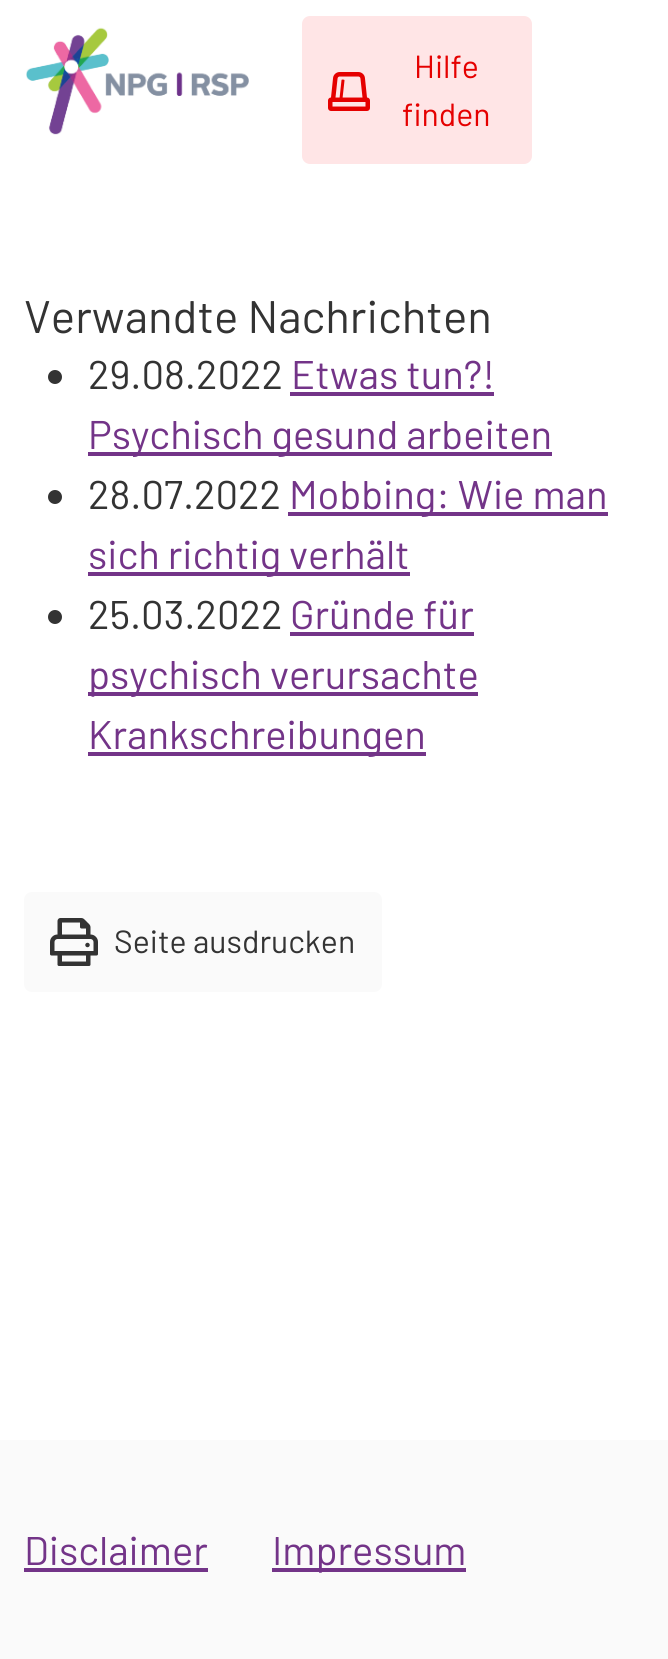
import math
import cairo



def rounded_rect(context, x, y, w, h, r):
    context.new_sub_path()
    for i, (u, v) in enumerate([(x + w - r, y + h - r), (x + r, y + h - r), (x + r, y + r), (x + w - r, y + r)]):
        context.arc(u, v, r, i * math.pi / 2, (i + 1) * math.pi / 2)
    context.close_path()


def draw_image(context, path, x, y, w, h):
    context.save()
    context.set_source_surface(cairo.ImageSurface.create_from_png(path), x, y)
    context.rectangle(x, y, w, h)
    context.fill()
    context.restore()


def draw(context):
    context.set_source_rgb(1, 1, 1)
    context.paint()
    draw_image(context, "images/1.png", 26, 27, 223, 108)
    context.set_source_rgb(1, 229 / 255, 230 / 255)
    rounded_rect(context, 302, 16, 230, 148, 8)
    context.fill()
    draw_image(context, "images/2.png", 328, 72, 42, 39)
    context.set_source_rgb(51 / 255, 51 / 255, 51 / 255)
    context.arc(55, 377, 7, 0, 2 * math.pi)
    context.fill()
    context.set_source_rgb(115 / 255, 52 / 255, 136 / 255)
    context.rectangle(290, 392, 204, 4)
    context.fill()
    context.rectangle(88, 452, 464, 4)
    context.fill()
    context.set_source_rgb(51 / 255, 51 / 255, 51 / 255)
    context.arc(55, 497, 7, 0, 2 * math.pi)
    context.fill()
    context.set_source_rgb(115 / 255, 52 / 255, 136 / 255)
    context.rectangle(288, 512, 320, 4)
    context.fill()
    context.rectangle(88, 572, 322, 4)
    context.fill()
    context.set_source_rgb(51 / 255, 51 / 255, 51 / 255)
    context.arc(55, 617, 7, 0, 2 * math.pi)
    context.fill()
    context.set_source_rgb(115 / 255, 52 / 255, 136 / 255)
    context.rectangle(290, 632, 184, 4)
    context.fill()
    context.rectangle(88, 692, 390, 4)
    context.fill()
    context.rectangle(88, 752, 338, 4)
    context.fill()
    context.set_source_rgb(250 / 255, 250 / 255, 250 / 255)
    rounded_rect(context, 24, 892, 358, 100, 8)
    context.fill()
    draw_image(context, "images/3.png", 50, 918, 48, 48)
    context.rectangle(0, 1440, 668, 219)
    context.fill()
    context.set_source_rgb(115 / 255, 52 / 255, 136 / 255)
    context.rectangle(24, 1568, 184, 4)
    context.fill()
    context.rectangle(272, 1568, 194, 4)
    context.fill()
    context.select_font_face("Barlow")
    context.set_font_size(32)
    context.set_source_rgb(229 / 255, 0, 0)
    context.move_to(414, 78)
    context.show_text("Hilfe")
    context.move_to(402, 126)
    context.show_text("finden")
    context.set_font_size(45.6)
    context.set_source_rgb(51 / 255, 51 / 255, 51 / 255)
    context.move_to(24, 333)
    context.show_text("Verwandte Nachrichten")
    context.set_font_size(40)
    context.move_to(88, 389)
    context.show_text("29.08.2022")
    context.set_source_rgb(115 / 255, 52 / 255, 136 / 255)
    context.move_to(291, 389)
    context.show_text("Etwas tun?!")
    context.move_to(88, 449)
    context.show_text("Psychisch gesund arbeiten")
    context.set_source_rgb(51 / 255, 51 / 255, 51 / 255)
    context.move_to(88, 509)
    context.show_text("28.07.2022")
    context.set_source_rgb(115 / 255, 52 / 255, 136 / 255)
    context.move_to(289, 509)
    context.show_text("Mobbing: Wie man")
    context.move_to(88, 569)
    context.show_text("sich richtig verhält")
    context.set_source_rgb(51 / 255, 51 / 255, 51 / 255)
    context.move_to(88, 629)
    context.show_text("25.03.2022")
    context.set_source_rgb(115 / 255, 52 / 255, 136 / 255)
    context.move_to(290, 629)
    context.show_text("Gründe für")
    context.move_to(88, 689)
    context.show_text("psychisch verursachte")
    context.move_to(88, 749)
    context.show_text("Krankschreibungen")
    context.set_font_size(32)
    context.set_source_rgb(51 / 255, 51 / 255, 51 / 255)
    context.move_to(114, 953)
    context.show_text("Seite ausdrucken")
    context.set_font_size(40)
    context.set_source_rgb(115 / 255, 52 / 255, 136 / 255)
    context.move_to(24, 1565)
    context.show_text("Disclaimer")
    context.move_to(272, 1565)
    context.show_text("Impressum")


surface = cairo.ImageSurface(cairo.Format.RGB24, 668, 1659)
context = cairo.Context(surface)
options = cairo.FontOptions()
options.set_hint_metrics(cairo.HintMetrics.OFF)
options.set_hint_style(cairo.HintStyle.NONE)
context.set_font_options(options)
context.set_miter_limit(4)
draw(context)
surface.write_to_png("out.png")
